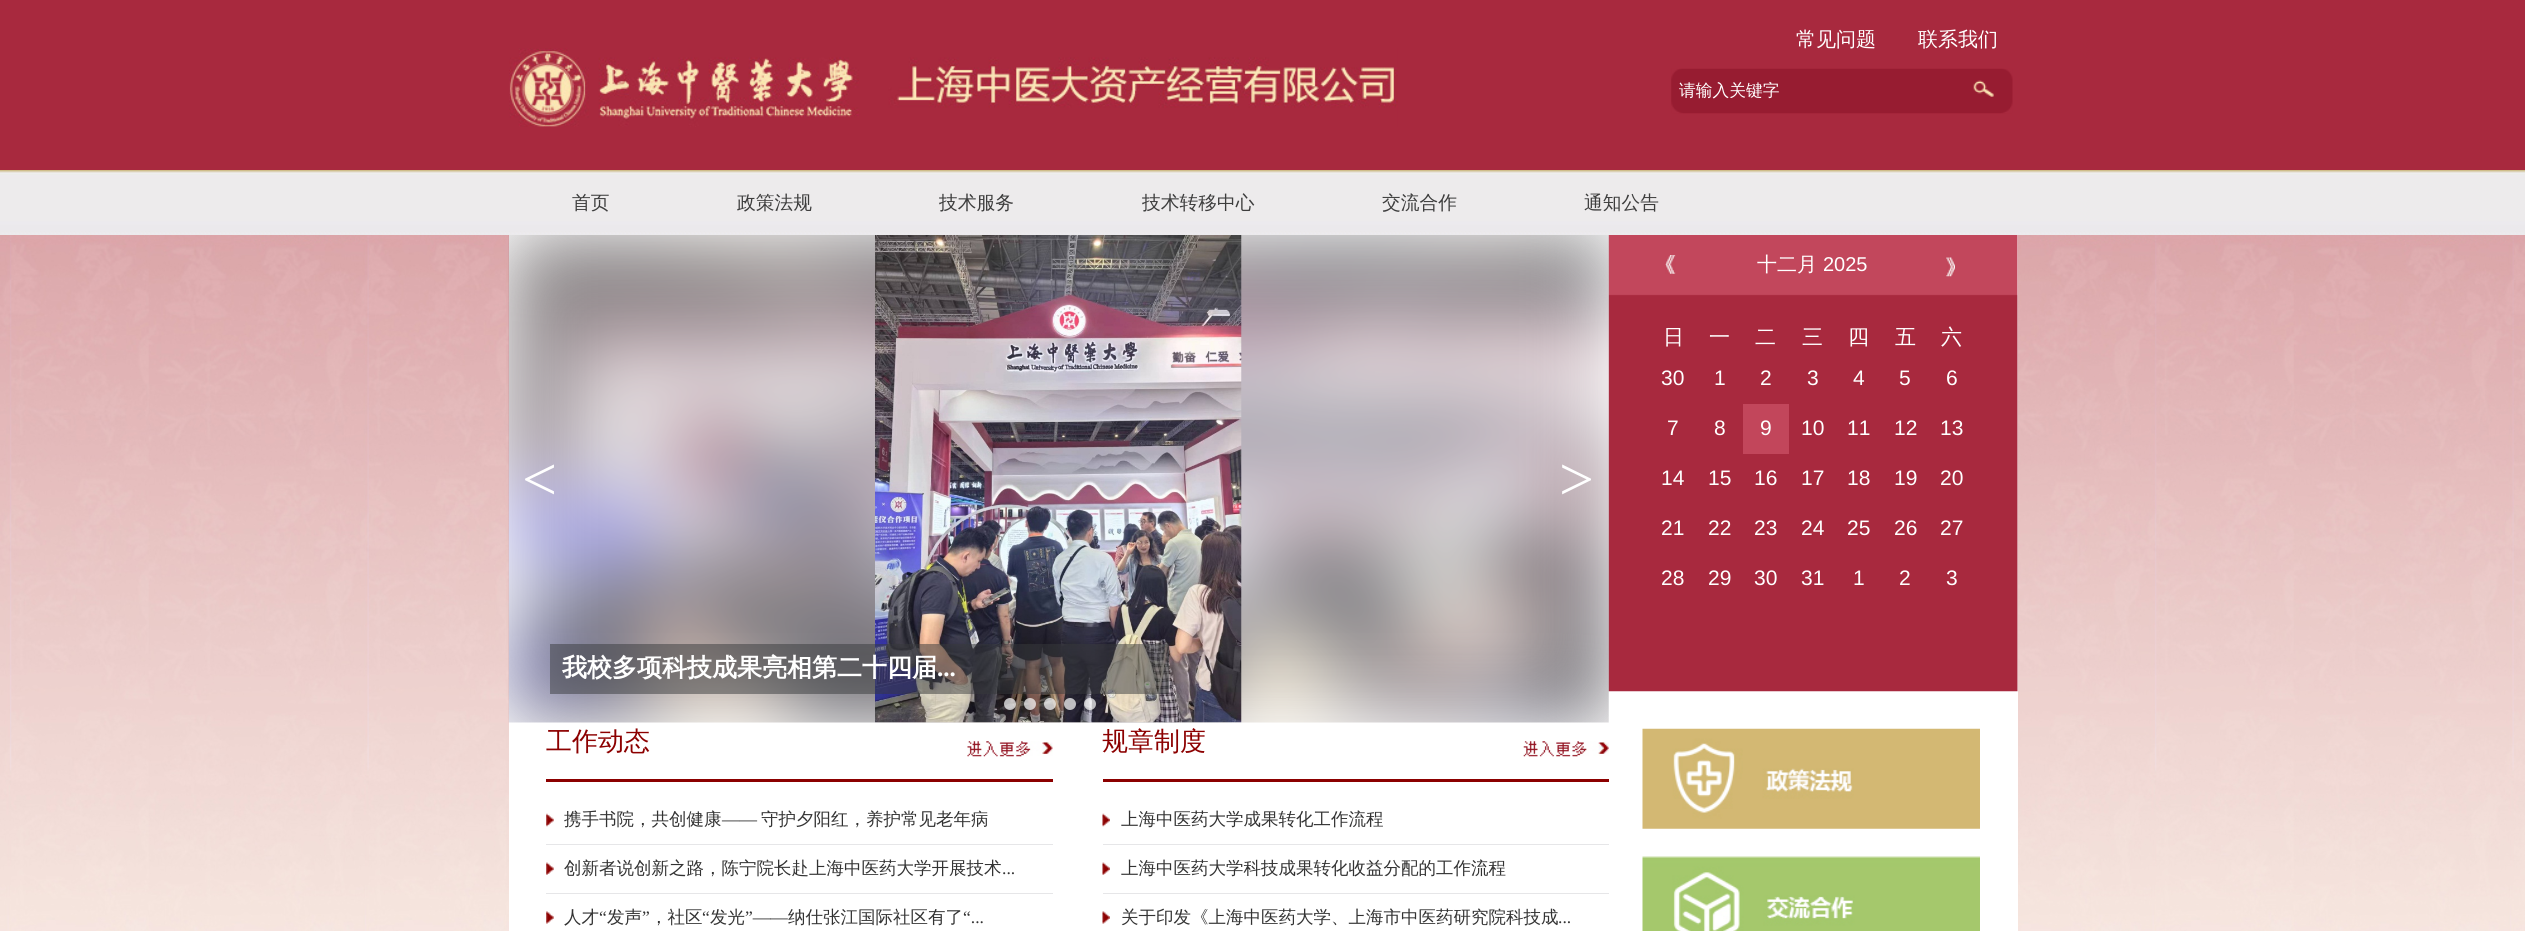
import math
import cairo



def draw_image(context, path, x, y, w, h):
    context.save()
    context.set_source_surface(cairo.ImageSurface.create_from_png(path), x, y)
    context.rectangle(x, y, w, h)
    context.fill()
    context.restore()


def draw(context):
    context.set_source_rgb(168 / 255, 41 / 255, 62 / 255)
    context.paint()
    draw_image(context, "images/1.png", 509, 48, 889, 79)
    draw_image(context, "images/2.png", 1671, 68, 342, 46)
    draw_image(context, "images/3.png", 0, 170, 2525, 65)
    draw_image(context, "images/4.png", 0, 235, 2525, 696)
    context.set_source_rgb(1, 1, 1)
    context.rectangle(509, 235, 1509, 696)
    context.fill()
    draw_image(context, "images/7.png", 1608, 235, 410, 457)
    draw_image(context, "images/5.png", 508, 235, 1101, 488)
    draw_image(context, "images/6.png", 875, 235, 367, 488)
    context.set_source_rgba(57 / 255, 58 / 255, 60 / 255, 0.5)
    context.rectangle(550, 644, 619, 50)
    context.fill()
    context.set_source_rgba(1, 1, 1, 0.7)
    context.arc(1010, 704, 6, 0, 2 * math.pi)
    context.fill()
    context.arc(1030, 704, 6, 0, 2 * math.pi)
    context.fill()
    context.arc(1050, 704, 6, 0, 2 * math.pi)
    context.fill()
    context.arc(1070, 704, 6, 0, 2 * math.pi)
    context.fill()
    context.arc(1090, 704, 6, 0, 2 * math.pi)
    context.fill()
    draw_image(context, "images/8.png", 1665, 255, 11, 19)
    draw_image(context, "images/9.png", 1946, 257, 9, 20)
    context.set_source_rgb(194 / 255, 70 / 255, 91 / 255)
    context.rectangle(1743, 404, 46, 50)
    context.fill()
    context.set_source_rgb(140 / 255, 0, 0)
    context.rectangle(546, 779, 507, 3)
    context.fill()
    draw_image(context, "images/10.png", 967, 741, 86, 16)
    draw_image(context, "images/11.png", 546, 813, 8, 14)
    context.set_source_rgb(230 / 255, 230 / 255, 232 / 255)
    context.rectangle(546, 844, 507, 1)
    context.fill()
    draw_image(context, "images/12.png", 546, 862, 8, 13)
    context.rectangle(546, 893, 507, 1)
    context.fill()
    draw_image(context, "images/13.png", 546, 911, 8, 13)
    context.set_source_rgb(140 / 255, 0, 0)
    context.rectangle(1103, 779, 506, 3)
    context.fill()
    draw_image(context, "images/14.png", 1523, 741, 86, 16)
    draw_image(context, "images/15.png", 1102, 813, 8, 14)
    context.set_source_rgb(230 / 255, 230 / 255, 232 / 255)
    context.rectangle(1103, 844, 506, 1)
    context.fill()
    draw_image(context, "images/16.png", 1102, 862, 8, 13)
    context.rectangle(1103, 893, 506, 1)
    context.fill()
    draw_image(context, "images/17.png", 1102, 911, 8, 13)
    draw_image(context, "images/18.png", 1642, 728, 338, 101)
    draw_image(context, "images/19.png", 1642, 856, 338, 75)
    context.select_font_face("WenQuanYi Zen Hei Medium")
    context.set_font_size(20)
    context.set_source_rgb(1, 1, 1)
    context.move_to(1796, 46)
    context.show_text("常见问题")
    context.move_to(1918, 46)
    context.show_text("联系我们")
    context.set_font_size(16.75)
    context.move_to(1679, 96)
    context.show_text("请输入关键字")
    context.set_font_size(18.75)
    context.set_source_rgb(61 / 255, 61 / 255, 61 / 255)
    context.move_to(572, 209)
    context.show_text("首页")
    context.move_to(737, 209)
    context.show_text("政策法规")
    context.move_to(939, 209)
    context.show_text("技术服务")
    context.move_to(1142, 209)
    context.show_text("技术转移中心")
    context.move_to(1382, 209)
    context.show_text("交流合作")
    context.move_to(1584, 209)
    context.show_text("通知公告")
    context.select_font_face("Liberation Serif")
    context.set_font_size(62)
    context.set_source_rgb(1, 1, 1)
    context.move_to(522, 500)
    context.show_text("<")
    context.move_to(1559, 500)
    context.show_text(">")
    context.select_font_face("WenQuanYi Zen Hei", cairo.FontSlant.NORMAL, cairo.FontWeight.BOLD)
    context.set_font_size(25)
    context.move_to(562, 676)
    context.show_text("我校多项科技成果亮相第二十四届")
    context.select_font_face("Liberation Serif", cairo.FontSlant.NORMAL, cairo.FontWeight.BOLD)
    context.move_to(937, 676)
    context.show_text("...")
    context.select_font_face("WenQuanYi Zen Hei Medium")
    context.set_font_size(20)
    context.move_to(1757, 271)
    context.show_text("十二月")
    context.select_font_face("Liberation Sans")
    context.move_to(1823, 271)
    context.show_text("2025")
    context.select_font_face("WenQuanYi Zen Hei Medium")
    context.set_font_size(21)
    context.move_to(1663, 344)
    context.show_text("日")
    context.move_to(1709, 344)
    context.show_text("一")
    context.move_to(1755, 344)
    context.show_text("二")
    context.move_to(1802, 344)
    context.show_text("三")
    context.move_to(1848, 344)
    context.show_text("四")
    context.move_to(1895, 344)
    context.show_text("五")
    context.move_to(1941, 344)
    context.show_text("六")
    context.select_font_face("Liberation Sans")
    context.move_to(1661, 385)
    context.show_text("30")
    context.move_to(1714, 385)
    context.show_text("1")
    context.move_to(1760, 385)
    context.show_text("2")
    context.move_to(1807, 385)
    context.show_text("3")
    context.move_to(1853, 385)
    context.show_text("4")
    context.move_to(1899, 385)
    context.show_text("5")
    context.move_to(1946, 385)
    context.show_text("6")
    context.move_to(1667, 435)
    context.show_text("7")
    context.move_to(1714, 435)
    context.show_text("8")
    context.move_to(1760, 435)
    context.show_text("9")
    context.move_to(1801, 435)
    context.show_text("10")
    context.move_to(1847, 435)
    context.show_text("11")
    context.move_to(1894, 435)
    context.show_text("12")
    context.move_to(1940, 435)
    context.show_text("13")
    context.move_to(1661, 485)
    context.show_text("14")
    context.move_to(1708, 485)
    context.show_text("15")
    context.move_to(1754, 485)
    context.show_text("16")
    context.move_to(1801, 485)
    context.show_text("17")
    context.move_to(1847, 485)
    context.show_text("18")
    context.move_to(1894, 485)
    context.show_text("19")
    context.move_to(1940, 485)
    context.show_text("20")
    context.move_to(1661, 535)
    context.show_text("21")
    context.move_to(1708, 535)
    context.show_text("22")
    context.move_to(1754, 535)
    context.show_text("23")
    context.move_to(1801, 535)
    context.show_text("24")
    context.move_to(1847, 535)
    context.show_text("25")
    context.move_to(1894, 535)
    context.show_text("26")
    context.move_to(1940, 535)
    context.show_text("27")
    context.move_to(1661, 585)
    context.show_text("28")
    context.move_to(1708, 585)
    context.show_text("29")
    context.move_to(1754, 585)
    context.show_text("30")
    context.move_to(1801, 585)
    context.show_text("31")
    context.move_to(1853, 585)
    context.show_text("1")
    context.move_to(1899, 585)
    context.show_text("2")
    context.move_to(1946, 585)
    context.show_text("3")
    context.select_font_face("WenQuanYi Zen Hei Medium")
    context.set_font_size(26)
    context.set_source_rgb(140 / 255, 0, 0)
    context.move_to(546, 750)
    context.show_text("工作动态")
    context.set_font_size(17.5)
    context.set_source_rgb(51 / 255, 51 / 255, 51 / 255)
    context.move_to(564, 825)
    context.show_text("携手书院，共创健康")
    context.select_font_face("Liberation Serif")
    context.move_to(722, 825)
    context.show_text("——")
    context.select_font_face("WenQuanYi Zen Hei Medium")
    context.move_to(761, 825)
    context.show_text("守护夕阳红，养护常见老年病")
    context.move_to(564, 874)
    context.show_text("创新者说创新之路，陈宁院长赴上海中医药大学开展技术")
    context.select_font_face("Liberation Serif")
    context.move_to(1002, 874)
    context.show_text("...")
    context.select_font_face("WenQuanYi Zen Hei Medium")
    context.move_to(564, 923)
    context.show_text("人才")
    context.select_font_face("Liberation Serif")
    context.move_to(599, 923)
    context.show_text("“")
    context.select_font_face("WenQuanYi Zen Hei Medium")
    context.move_to(607, 923)
    context.show_text("发声")
    context.select_font_face("Liberation Serif")
    context.move_to(642, 923)
    context.show_text("”")
    context.select_font_face("WenQuanYi Zen Hei Medium")
    context.move_to(650, 923)
    context.show_text("，社区")
    context.select_font_face("Liberation Serif")
    context.move_to(702, 923)
    context.show_text("“")
    context.select_font_face("WenQuanYi Zen Hei Medium")
    context.move_to(710, 923)
    context.show_text("发光")
    context.select_font_face("Liberation Serif")
    context.move_to(745, 923)
    context.show_text("”——")
    context.select_font_face("WenQuanYi Zen Hei Medium")
    context.move_to(788, 923)
    context.show_text("纳仕张江国际社区有了")
    context.select_font_face("Liberation Serif")
    context.move_to(963, 923)
    context.show_text("“...")
    context.select_font_face("WenQuanYi Zen Hei Medium")
    context.set_font_size(26)
    context.set_source_rgb(140 / 255, 0, 0)
    context.move_to(1102, 750)
    context.show_text("规章制度")
    context.set_font_size(17.5)
    context.set_source_rgb(51 / 255, 51 / 255, 51 / 255)
    context.move_to(1121, 825)
    context.show_text("上海中医药大学成果转化工作流程")
    context.move_to(1121, 874)
    context.show_text("上海中医药大学科技成果转化收益分配的工作流程")
    context.move_to(1121, 923)
    context.show_text("关于印发《上海中医药大学、上海市中医药研究院科技成")
    context.select_font_face("Liberation Serif")
    context.move_to(1558, 923)
    context.show_text("...")


surface = cairo.ImageSurface(cairo.Format.RGB24, 2525, 931)
context = cairo.Context(surface)
options = cairo.FontOptions()
options.set_hint_metrics(cairo.HintMetrics.OFF)
options.set_hint_style(cairo.HintStyle.NONE)
context.set_font_options(options)
context.set_miter_limit(4)
draw(context)
surface.write_to_png("out.png")
